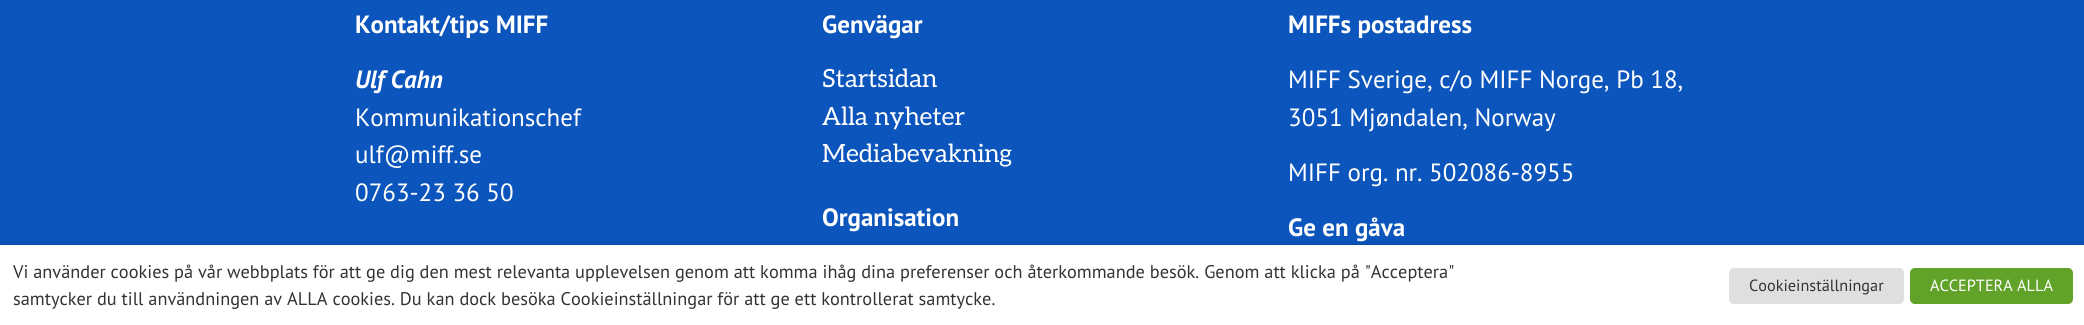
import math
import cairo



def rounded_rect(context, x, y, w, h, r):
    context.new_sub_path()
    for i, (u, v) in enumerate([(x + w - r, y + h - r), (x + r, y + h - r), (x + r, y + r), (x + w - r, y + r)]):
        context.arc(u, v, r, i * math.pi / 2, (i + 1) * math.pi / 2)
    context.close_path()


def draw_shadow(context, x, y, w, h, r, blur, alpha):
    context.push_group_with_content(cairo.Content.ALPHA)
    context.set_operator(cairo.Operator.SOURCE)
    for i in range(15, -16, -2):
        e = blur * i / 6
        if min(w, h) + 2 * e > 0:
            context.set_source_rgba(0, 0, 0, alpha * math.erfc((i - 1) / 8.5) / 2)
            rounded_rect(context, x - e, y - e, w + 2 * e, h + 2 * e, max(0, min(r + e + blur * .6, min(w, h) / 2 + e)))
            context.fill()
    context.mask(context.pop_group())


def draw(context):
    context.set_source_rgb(11 / 255, 85 / 255, 188 / 255)
    context.paint()
    context.set_source_rgb(0, 0, 0)
    draw_shadow(context, 0, 251, 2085, 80, 0, 6, 0.5)
    context.set_source_rgb(1, 1, 1)
    context.rectangle(0, 245, 2084, 80)
    context.fill()
    context.set_source_rgb(222 / 255, 223 / 255, 224 / 255)
    rounded_rect(context, 1729, 268, 175, 36, 5)
    context.fill()
    context.set_source_rgb(97 / 255, 162 / 255, 41 / 255)
    rounded_rect(context, 1910, 268, 163, 36, 5)
    context.fill()
    context.select_font_face("PT Sans", cairo.FontSlant.NORMAL, cairo.FontWeight.BOLD)
    context.set_font_size(25)
    context.set_source_rgb(1, 1, 1)
    context.move_to(355, 33)
    context.show_text("Kontakt/tips MIFF")
    context.select_font_face("PT Sans", cairo.FontSlant.ITALIC, cairo.FontWeight.BOLD)
    context.move_to(355, 88)
    context.show_text("Ulf Cahn")
    context.select_font_face("PT Sans")
    context.move_to(355, 126)
    context.show_text("Kommunikationschef")
    context.move_to(355, 163)
    context.show_text("ulf@miff.se")
    context.move_to(355, 201)
    context.show_text("0763-23 36 50")
    context.select_font_face("PT Sans", cairo.FontSlant.NORMAL, cairo.FontWeight.BOLD)
    context.move_to(822, 33)
    context.show_text("Genvägar")
    context.select_font_face("Aleo")
    context.move_to(822, 87)
    context.show_text("Startsidan")
    context.move_to(822, 125)
    context.show_text("Alla nyheter")
    context.move_to(822, 162)
    context.show_text("Mediabevakning")
    context.select_font_face("PT Sans", cairo.FontSlant.NORMAL, cairo.FontWeight.BOLD)
    context.move_to(822, 226)
    context.show_text("Organisation")
    context.move_to(1288, 33)
    context.show_text("MIFFs postadress")
    context.select_font_face("PT Sans")
    context.move_to(1288, 88)
    context.show_text("MIFF Sverige, c/o MIFF Norge, Pb 18,")
    context.move_to(1288, 126)
    context.show_text("3051 Mjøndalen, Norway")
    context.move_to(1288, 181)
    context.show_text("MIFF org. nr. 502086-8955")
    context.select_font_face("PT Sans", cairo.FontSlant.NORMAL, cairo.FontWeight.BOLD)
    context.move_to(1288, 236)
    context.show_text("Ge en gåva")
    context.select_font_face("PT Sans")
    context.set_font_size(18.33)
    context.set_source_rgb(51 / 255, 51 / 255, 51 / 255)
    context.move_to(13, 278)
    context.show_text("Vi använder cookies på vår webbplats för att ge dig den mest relevanta upplevelsen genom att komma ihåg dina preferenser och återkommande besök. Genom att klicka på \"Acceptera\"")
    context.move_to(13, 305)
    context.show_text("samtycker du till användningen av ALLA cookies. Du kan dock besöka Cookieinställningar för att ge ett kontrollerat samtycke.")
    context.set_font_size(16.25)
    context.move_to(1749, 291)
    context.show_text("Cookieinställningar")
    context.set_source_rgb(1, 1, 1)
    context.move_to(1930, 291)
    context.show_text("ACCEPTERA ALLA")


surface = cairo.ImageSurface(cairo.Format.RGB24, 2084, 325)
context = cairo.Context(surface)
options = cairo.FontOptions()
options.set_hint_metrics(cairo.HintMetrics.OFF)
options.set_hint_style(cairo.HintStyle.NONE)
context.set_font_options(options)
context.set_miter_limit(4)
draw(context)
surface.write_to_png("out.png")
